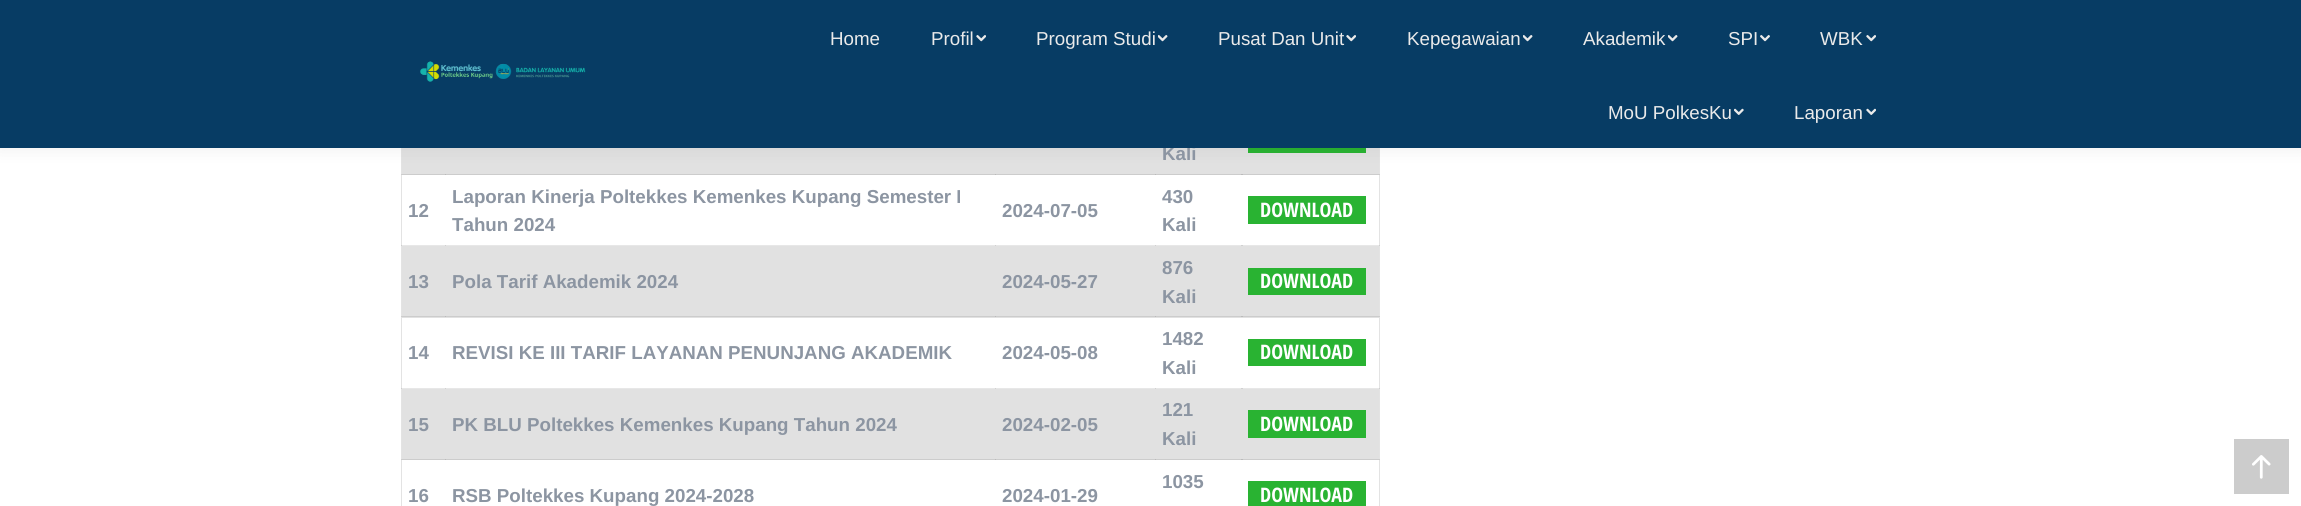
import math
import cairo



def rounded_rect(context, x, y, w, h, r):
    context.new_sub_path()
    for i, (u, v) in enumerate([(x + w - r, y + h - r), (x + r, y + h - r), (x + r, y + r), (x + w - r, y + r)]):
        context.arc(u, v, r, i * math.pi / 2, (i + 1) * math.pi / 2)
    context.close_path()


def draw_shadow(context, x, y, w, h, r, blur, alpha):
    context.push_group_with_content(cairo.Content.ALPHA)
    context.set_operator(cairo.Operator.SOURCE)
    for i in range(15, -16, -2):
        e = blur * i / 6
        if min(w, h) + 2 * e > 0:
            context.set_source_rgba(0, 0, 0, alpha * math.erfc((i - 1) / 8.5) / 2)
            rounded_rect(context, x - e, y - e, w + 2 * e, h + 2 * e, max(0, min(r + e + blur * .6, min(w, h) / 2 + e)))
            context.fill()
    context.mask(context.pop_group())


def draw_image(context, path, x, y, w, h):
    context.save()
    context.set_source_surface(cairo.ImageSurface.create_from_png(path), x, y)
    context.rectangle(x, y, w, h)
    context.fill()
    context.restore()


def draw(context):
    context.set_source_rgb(1, 1, 1)
    context.paint()
    context.set_source_rgb(231 / 255, 231 / 255, 231 / 255)
    context.rectangle(401, 245, 979, 1)
    context.fill()
    context.set_source_rgb(209 / 255, 209 / 255, 209 / 255)
    context.rectangle(445, 245, 1, 1)
    context.fill()
    context.rectangle(995, 245, 1, 1)
    context.fill()
    context.rectangle(1155, 245, 1, 1)
    context.fill()
    context.rectangle(1241, 245, 2, 1)
    context.fill()
    context.set_source_rgb(231 / 255, 231 / 255, 231 / 255)
    context.rectangle(401, 388, 979, 1)
    context.fill()
    context.set_source_rgb(209 / 255, 209 / 255, 209 / 255)
    context.rectangle(445, 388, 1, 1)
    context.fill()
    context.rectangle(995, 388, 1, 1)
    context.fill()
    context.rectangle(1155, 388, 1, 1)
    context.fill()
    context.rectangle(1241, 388, 2, 1)
    context.fill()
    context.set_source_rgb(227 / 255, 227 / 255, 227 / 255)
    context.rectangle(1379, 148, 1, 358)
    context.fill()
    context.set_source_rgb(204 / 255, 204 / 255, 204 / 255)
    context.rectangle(401, 174, 842, 1)
    context.fill()
    context.set_source_rgb(225 / 255, 225 / 255, 225 / 255)
    context.rectangle(402, 246, 977, 72)
    context.fill()
    context.set_source_rgb(204 / 255, 204 / 255, 204 / 255)
    context.rectangle(401, 316, 842, 1)
    context.fill()
    context.rectangle(401, 459, 842, 1)
    context.fill()
    context.set_source_rgb(227 / 255, 227 / 255, 227 / 255)
    context.rectangle(401, 148, 1, 358)
    context.fill()
    context.set_source_rgb(206 / 255, 206 / 255, 206 / 255)
    context.rectangle(401, 174, 1, 1)
    context.fill()
    context.set_source_rgb(225 / 255, 225 / 255, 225 / 255)
    context.rectangle(402, 148, 977, 26)
    context.fill()
    context.set_source_rgb(186 / 255, 186 / 255, 186 / 255)
    context.rectangle(445, 174, 1, 1)
    context.fill()
    context.rectangle(995, 174, 1, 1)
    context.fill()
    context.rectangle(1155, 174, 1, 1)
    context.fill()
    context.set_source_rgb(41 / 255, 179 / 255, 50 / 255)
    context.rectangle(1248, 148, 118, 5)
    context.fill()
    context.set_source_rgb(204 / 255, 204 / 255, 204 / 255)
    context.rectangle(1241, 174, 139, 1)
    context.fill()
    context.set_source_rgb(186 / 255, 186 / 255, 186 / 255)
    context.rectangle(1241, 174, 2, 1)
    context.fill()
    context.set_source_rgb(0, 0, 0)
    draw_shadow(context, -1, -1, 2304, 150, 0, 9.5, 0.07)
    context.set_source_rgb(206 / 255, 206 / 255, 206 / 255)
    context.rectangle(1379, 245, 1, 1)
    context.fill()
    context.rectangle(1379, 388, 1, 1)
    context.fill()
    context.rectangle(401, 245, 1, 1)
    context.fill()
    context.rectangle(401, 316, 1, 1)
    context.fill()
    context.rectangle(401, 388, 1, 1)
    context.fill()
    context.rectangle(401, 459, 1, 1)
    context.fill()
    context.set_source_rgb(41 / 255, 179 / 255, 50 / 255)
    context.rectangle(1248, 196, 118, 28)
    context.fill()
    context.set_source_rgb(186 / 255, 186 / 255, 186 / 255)
    context.rectangle(445, 316, 1, 1)
    context.fill()
    context.rectangle(995, 316, 1, 1)
    context.fill()
    context.rectangle(1155, 316, 1, 1)
    context.fill()
    context.set_source_rgb(41 / 255, 179 / 255, 50 / 255)
    context.rectangle(1248, 268, 118, 27)
    context.fill()
    context.set_source_rgb(204 / 255, 204 / 255, 204 / 255)
    context.rectangle(1241, 316, 139, 1)
    context.fill()
    context.set_source_rgb(186 / 255, 186 / 255, 186 / 255)
    context.rectangle(1241, 316, 2, 1)
    context.fill()
    context.set_source_rgb(41 / 255, 179 / 255, 50 / 255)
    context.rectangle(1248, 339, 118, 27)
    context.fill()
    context.set_source_rgb(225 / 255, 225 / 255, 225 / 255)
    context.rectangle(402, 389, 977, 70)
    context.fill()
    context.set_source_rgb(186 / 255, 186 / 255, 186 / 255)
    context.rectangle(445, 459, 1, 1)
    context.fill()
    context.rectangle(995, 459, 1, 1)
    context.fill()
    context.rectangle(1155, 459, 1, 1)
    context.fill()
    context.set_source_rgb(41 / 255, 179 / 255, 50 / 255)
    context.rectangle(1248, 410, 118, 28)
    context.fill()
    context.set_source_rgb(204 / 255, 204 / 255, 204 / 255)
    context.rectangle(1241, 459, 139, 1)
    context.fill()
    context.set_source_rgb(186 / 255, 186 / 255, 186 / 255)
    context.rectangle(1241, 459, 2, 1)
    context.fill()
    context.set_source_rgb(41 / 255, 179 / 255, 50 / 255)
    context.rectangle(1248, 481, 118, 25)
    context.fill()
    context.set_source_rgb(204 / 255, 204 / 255, 204 / 255)
    context.rectangle(2234, 439, 55, 55)
    context.fill()
    draw_image(context, "images/7.png", 2252, 455, 19, 24)
    context.select_font_face("Liberation Sans", cairo.FontSlant.NORMAL, cairo.FontWeight.BOLD)
    context.set_font_size(18.75)
    context.set_source_rgb(140 / 255, 149 / 255, 162 / 255)
    context.move_to(1162, 160)
    context.show_text("Kali")
    context.set_source_rgb(7 / 255, 60 / 255, 100 / 255)
    context.rectangle(0, 0, 2301, 148)
    context.fill()
    draw_image(context, "images/6.png", 1866, 108, 10, 7)
    context.select_font_face("Liberation Sans")
    context.set_source_rgb(234 / 255, 234 / 255, 234 / 255)
    context.move_to(1794, 119)
    context.show_text("Laporan")
    draw_image(context, "images/5.png", 1734, 108, 10, 7)
    context.move_to(1608, 119)
    context.show_text("MoU PolkesKu")
    draw_image(context, "images/2.png", 1866, 35, 10, 7)
    context.move_to(1820, 45)
    context.show_text("WBK")
    draw_image(context, "images/4.png", 1760, 35, 10, 7)
    context.move_to(1728, 45)
    context.show_text("SPI")
    draw_image(context, "images/3.png", 1668, 35, 10, 7)
    context.move_to(1583, 45)
    context.show_text("Akademik")
    draw_image(context, "images/3.png", 1523, 35, 10, 7)
    context.move_to(1407, 45)
    context.show_text("Kepegawaian")
    draw_image(context, "images/2.png", 1346, 35, 10, 7)
    context.move_to(1218, 45)
    context.show_text("Pusat Dan Unit")
    draw_image(context, "images/3.png", 1158, 35, 10, 7)
    context.move_to(1036, 45)
    context.show_text("Program Studi")
    draw_image(context, "images/2.png", 976, 35, 10, 7)
    context.move_to(931, 45)
    context.show_text("Profil")
    context.move_to(830, 45)
    context.show_text("Home")
    draw_image(context, "images/1.png", 420, 61, 166, 21)
    context.select_font_face("Liberation Sans", cairo.FontSlant.NORMAL, cairo.FontWeight.BOLD)
    context.set_source_rgb(140 / 255, 149 / 255, 162 / 255)
    context.move_to(408, 217)
    context.show_text("12")
    context.move_to(452, 203)
    context.show_text("Laporan Kinerja Poltekkes Kemenkes Kupang Semester I")
    context.move_to(452, 231)
    context.show_text("Tahun 2024")
    context.move_to(1002, 217)
    context.show_text("2024-07-05")
    context.move_to(1162, 203)
    context.show_text("430")
    context.move_to(1162, 231)
    context.show_text("Kali")
    context.select_font_face("Open Sans Condensed", cairo.FontSlant.NORMAL, cairo.FontWeight.BOLD)
    context.set_font_size(20)
    context.set_source_rgb(1, 1, 1)
    context.move_to(1260, 217)
    context.show_text("DOWNLOAD")
    context.select_font_face("Liberation Sans", cairo.FontSlant.NORMAL, cairo.FontWeight.BOLD)
    context.set_font_size(18.75)
    context.set_source_rgb(140 / 255, 149 / 255, 162 / 255)
    context.move_to(408, 288)
    context.show_text("13")
    context.move_to(452, 288)
    context.show_text("Pola Tarif Akademik 2024")
    context.move_to(1002, 288)
    context.show_text("2024-05-27")
    context.move_to(1162, 274)
    context.show_text("876")
    context.move_to(1162, 303)
    context.show_text("Kali")
    context.select_font_face("Open Sans Condensed", cairo.FontSlant.NORMAL, cairo.FontWeight.BOLD)
    context.set_font_size(20)
    context.set_source_rgb(1, 1, 1)
    context.move_to(1260, 288)
    context.show_text("DOWNLOAD")
    context.select_font_face("Liberation Sans", cairo.FontSlant.NORMAL, cairo.FontWeight.BOLD)
    context.set_font_size(18.75)
    context.set_source_rgb(140 / 255, 149 / 255, 162 / 255)
    context.move_to(408, 359)
    context.show_text("14")
    context.move_to(452, 359)
    context.show_text("REVISI KE III TARIF LAYANAN PENUNJANG AKADEMIK")
    context.move_to(1002, 359)
    context.show_text("2024-05-08")
    context.move_to(1162, 345)
    context.show_text("1482")
    context.move_to(1162, 374)
    context.show_text("Kali")
    context.select_font_face("Open Sans Condensed", cairo.FontSlant.NORMAL, cairo.FontWeight.BOLD)
    context.set_font_size(20)
    context.set_source_rgb(1, 1, 1)
    context.move_to(1260, 359)
    context.show_text("DOWNLOAD")
    context.select_font_face("Liberation Sans", cairo.FontSlant.NORMAL, cairo.FontWeight.BOLD)
    context.set_font_size(18.75)
    context.set_source_rgb(140 / 255, 149 / 255, 162 / 255)
    context.move_to(408, 431)
    context.show_text("15")
    context.move_to(452, 431)
    context.show_text("PK BLU Poltekkes Kemenkes Kupang Tahun 2024")
    context.move_to(1002, 431)
    context.show_text("2024-02-05")
    context.move_to(1162, 416)
    context.show_text("121")
    context.move_to(1162, 445)
    context.show_text("Kali")
    context.select_font_face("Open Sans Condensed", cairo.FontSlant.NORMAL, cairo.FontWeight.BOLD)
    context.set_font_size(20)
    context.set_source_rgb(1, 1, 1)
    context.move_to(1260, 431)
    context.show_text("DOWNLOAD")
    context.select_font_face("Liberation Sans", cairo.FontSlant.NORMAL, cairo.FontWeight.BOLD)
    context.set_font_size(18.75)
    context.set_source_rgb(140 / 255, 149 / 255, 162 / 255)
    context.move_to(1162, 488)
    context.show_text("1035")
    context.move_to(408, 502)
    context.show_text("16")
    context.move_to(452, 502)
    context.show_text("RSB Poltekkes Kupang 2024-2028")
    context.move_to(1002, 502)
    context.show_text("2024-01-29")
    context.select_font_face("Open Sans Condensed", cairo.FontSlant.NORMAL, cairo.FontWeight.BOLD)
    context.set_font_size(20)
    context.set_source_rgb(1, 1, 1)
    context.move_to(1260, 502)
    context.show_text("DOWNLOAD")


surface = cairo.ImageSurface(cairo.Format.RGB24, 2301, 506)
context = cairo.Context(surface)
options = cairo.FontOptions()
options.set_hint_metrics(cairo.HintMetrics.OFF)
options.set_hint_style(cairo.HintStyle.NONE)
context.set_font_options(options)
context.set_miter_limit(4)
draw(context)
surface.write_to_png("out.png")
